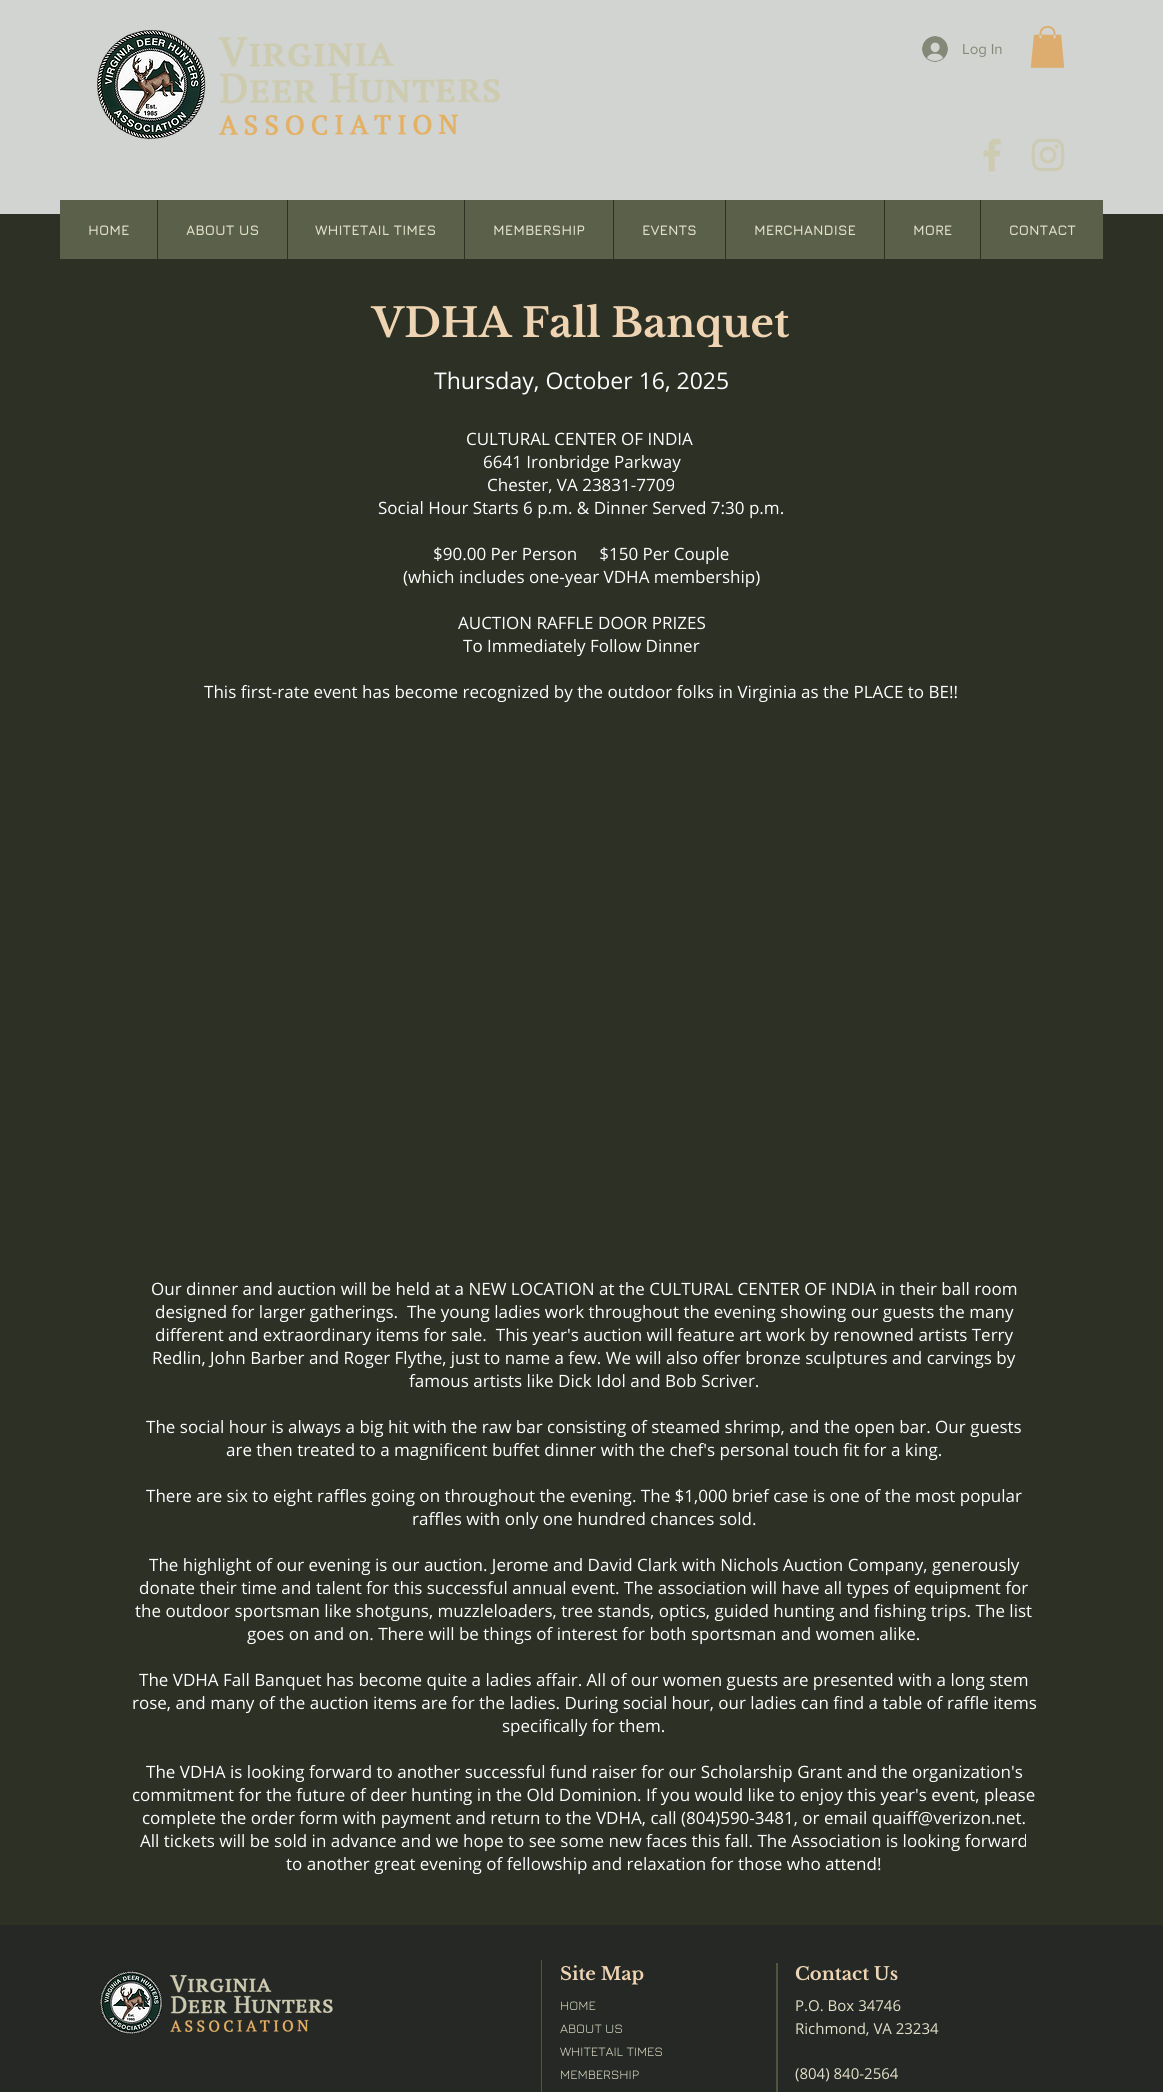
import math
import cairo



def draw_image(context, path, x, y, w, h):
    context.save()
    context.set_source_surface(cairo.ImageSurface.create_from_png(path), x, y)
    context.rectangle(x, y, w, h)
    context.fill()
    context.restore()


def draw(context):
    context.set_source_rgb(209 / 255, 212 / 255, 208 / 255)
    context.paint()
    draw_image(context, "images/1.png", 96, 29, 404, 111)
    draw_image(context, "images/2.png", 922, 36, 26, 26)
    draw_image(context, "images/3.png", 1030, 26, 35, 42)
    draw_image(context, "images/4.png", 983, 138, 18, 34)
    draw_image(context, "images/5.png", 1031, 138, 34, 34)
    context.set_source_rgb(45 / 255, 48 / 255, 37 / 255)
    context.rectangle(0, 214, 1163, 1711)
    context.fill()
    context.set_source_rgb(90 / 255, 96 / 255, 73 / 255)
    context.rectangle(60, 200, 1043, 59)
    context.fill()
    context.set_source_rgb(45 / 255, 48 / 255, 37 / 255)
    context.rectangle(157, 200, 1, 59)
    context.fill()
    context.rectangle(287, 200, 1, 59)
    context.fill()
    context.rectangle(464, 200, 1, 59)
    context.fill()
    context.rectangle(613, 200, 1, 59)
    context.fill()
    context.rectangle(725, 200, 1, 59)
    context.fill()
    context.rectangle(884, 200, 1, 59)
    context.fill()
    context.rectangle(980, 200, 1, 59)
    context.fill()
    context.set_source_rgb(37 / 255, 40 / 255, 36 / 255)
    context.rectangle(0, 1925, 1163, 167)
    context.fill()
    draw_image(context, "images/6.png", 100, 1971, 233, 64)
    context.set_source_rgb(81 / 255, 84 / 255, 67 / 255)
    context.rectangle(541, 1960, 1, 132)
    context.fill()
    context.rectangle(776, 1963, 2, 129)
    context.fill()
    context.select_font_face("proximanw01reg")
    context.set_font_size(15)
    context.set_source_rgb(132 / 255, 136 / 255, 119 / 255)
    context.move_to(962, 54)
    context.show_text("Log In")
    context.select_font_face("Jura", cairo.FontSlant.NORMAL, cairo.FontWeight.BOLD)
    context.set_font_size(14)
    context.set_source_rgb(226 / 255, 224 / 255, 201 / 255)
    context.move_to(88, 235)
    context.show_text("HOME")
    context.move_to(186, 235)
    context.show_text("ABOUT US")
    context.move_to(315, 235)
    context.show_text("WHITETAIL TIMES")
    context.move_to(493, 235)
    context.show_text("MEMBERSHIP")
    context.move_to(642, 235)
    context.show_text("EVENTS")
    context.move_to(754, 235)
    context.show_text("MERCHANDISE")
    context.move_to(913, 235)
    context.show_text("MORE")
    context.move_to(1009, 235)
    context.show_text("CONTACT")
    context.select_font_face("Libre Baskerville", cairo.FontSlant.NORMAL, cairo.FontWeight.BOLD)
    context.set_font_size(40)
    context.set_source_rgb(238 / 255, 212 / 255, 178 / 255)
    context.move_to(372, 337)
    context.show_text("VDHA Fall Banquet")
    context.select_font_face("Open Sans")
    context.set_font_size(23)
    context.set_source_rgb(1, 1, 1)
    context.move_to(434, 389)
    context.show_text("Thursday, October 16, 2025")
    context.set_font_size(17)
    context.move_to(466, 445)
    context.show_text("CULTURAL CENTER OF INDIA")
    context.move_to(483, 468)
    context.show_text("6641 Ironbridge Parkway")
    context.move_to(487, 491)
    context.show_text("Chester, VA 23831-7709")
    context.move_to(378, 514)
    context.show_text("Social Hour Starts 6 p.m. & Dinner Served 7:30 p.m.")
    context.move_to(433, 560)
    context.show_text("$90.00 Per Person     $150 Per Couple")
    context.move_to(403, 583)
    context.show_text("(which includes one-year VDHA membership)")
    context.move_to(458, 629)
    context.show_text("AUCTION RAFFLE DOOR PRIZES")
    context.move_to(463, 652)
    context.show_text("To Immediately Follow Dinner")
    context.move_to(204, 698)
    context.show_text("This first-rate event has become recognized by the outdoor folks in Virginia as the PLACE to BE!!")
    context.move_to(151, 1295)
    context.show_text("Our dinner and auction will be held at a NEW LOCATION at the CULTURAL CENTER OF INDIA in their ball room")
    context.move_to(155, 1318)
    context.show_text("designed for larger gatherings.  The young ladies work throughout the evening showing our guests the many")
    context.move_to(155, 1341)
    context.show_text("different and extraordinary items for sale.  This year's auction will feature art work by renowned artists Terry")
    context.move_to(152, 1364)
    context.show_text("Redlin, John Barber and Roger Flythe, just to name a few. We will also offer bronze sculptures and carvings by")
    context.move_to(409, 1387)
    context.show_text("famous artists like Dick Idol and Bob Scriver.")
    context.move_to(146, 1433)
    context.show_text("The social hour is always a big hit with the raw bar consisting of steamed shrimp, and the open bar. Our guests")
    context.move_to(226, 1456)
    context.show_text("are then treated to a magnificent buffet dinner with the chef's personal touch fit for a king.")
    context.move_to(146, 1502)
    context.show_text("There are six to eight raffles going on throughout the evening. The $1,000 brief case is one of the most popular")
    context.move_to(412, 1525)
    context.show_text("raffles with only one hundred chances sold.")
    context.move_to(149, 1571)
    context.show_text("The highlight of our evening is our auction. Jerome and David Clark with Nichols Auction Company, generously")
    context.move_to(139, 1594)
    context.show_text("donate their time and talent for this successful annual event. The association will have all types of equipment for")
    context.move_to(135, 1617)
    context.show_text("the outdoor sportsman like shotguns, muzzleloaders, tree stands, optics, guided hunting and fishing trips. The list")
    context.move_to(247, 1640)
    context.show_text("goes on and on. There will be things of interest for both sportsman and women alike.")
    context.move_to(139, 1686)
    context.show_text("The VDHA Fall Banquet has become quite a ladies affair. All of our women guests are presented with a long stem")
    context.move_to(132, 1709)
    context.show_text("rose, and many of the auction items are for the ladies. During social hour, our ladies can find a table of raffle items")
    context.move_to(502, 1732)
    context.show_text("specifically for them.")
    context.move_to(146, 1778)
    context.show_text("The VDHA is looking forward to another successful fund raiser for our Scholarship Grant and the organization's")
    context.move_to(132, 1801)
    context.show_text("commitment for the future of deer hunting in the Old Dominion. If you would like to enjoy this year's event, please")
    context.move_to(142, 1824)
    context.show_text("complete the order form with payment and return to the VDHA, call (804)590-3481, or email quaiff@verizon.net.")
    context.move_to(140, 1847)
    context.show_text("All tickets will be sold in advance and we hope to see some new faces this fall. The Association is looking forward")
    context.move_to(286, 1870)
    context.show_text("to another great evening of fellowship and relaxation for those who attend!")
    context.select_font_face("Libre Baskerville", cairo.FontSlant.NORMAL, cairo.FontWeight.BOLD)
    context.set_font_size(18)
    context.set_source_rgb(238 / 255, 212 / 255, 178 / 255)
    context.move_to(560, 1980)
    context.show_text("Site Map")
    context.move_to(795, 1980)
    context.show_text("Contact Us")
    context.select_font_face("Jura")
    context.set_font_size(13)
    context.set_source_rgb(226 / 255, 224 / 255, 201 / 255)
    context.move_to(560, 2010)
    context.show_text("HOME")
    context.move_to(560, 2033)
    context.show_text("ABOUT US")
    context.move_to(560, 2056)
    context.show_text("WHITETAIL TIMES")
    context.move_to(560, 2079)
    context.show_text("MEMBERSHIP")
    context.select_font_face("Open Sans")
    context.set_font_size(15)
    context.move_to(795, 2011)
    context.show_text("P.O. Box 34746")
    context.move_to(795, 2034)
    context.show_text("Richmond, VA 23234")
    context.move_to(795, 2079)
    context.show_text("(804) 840-2564")


surface = cairo.ImageSurface(cairo.Format.RGB24, 1163, 2092)
context = cairo.Context(surface)
options = cairo.FontOptions()
options.set_hint_metrics(cairo.HintMetrics.OFF)
options.set_hint_style(cairo.HintStyle.NONE)
context.set_font_options(options)
context.set_miter_limit(4)
draw(context)
surface.write_to_png("out.png")
